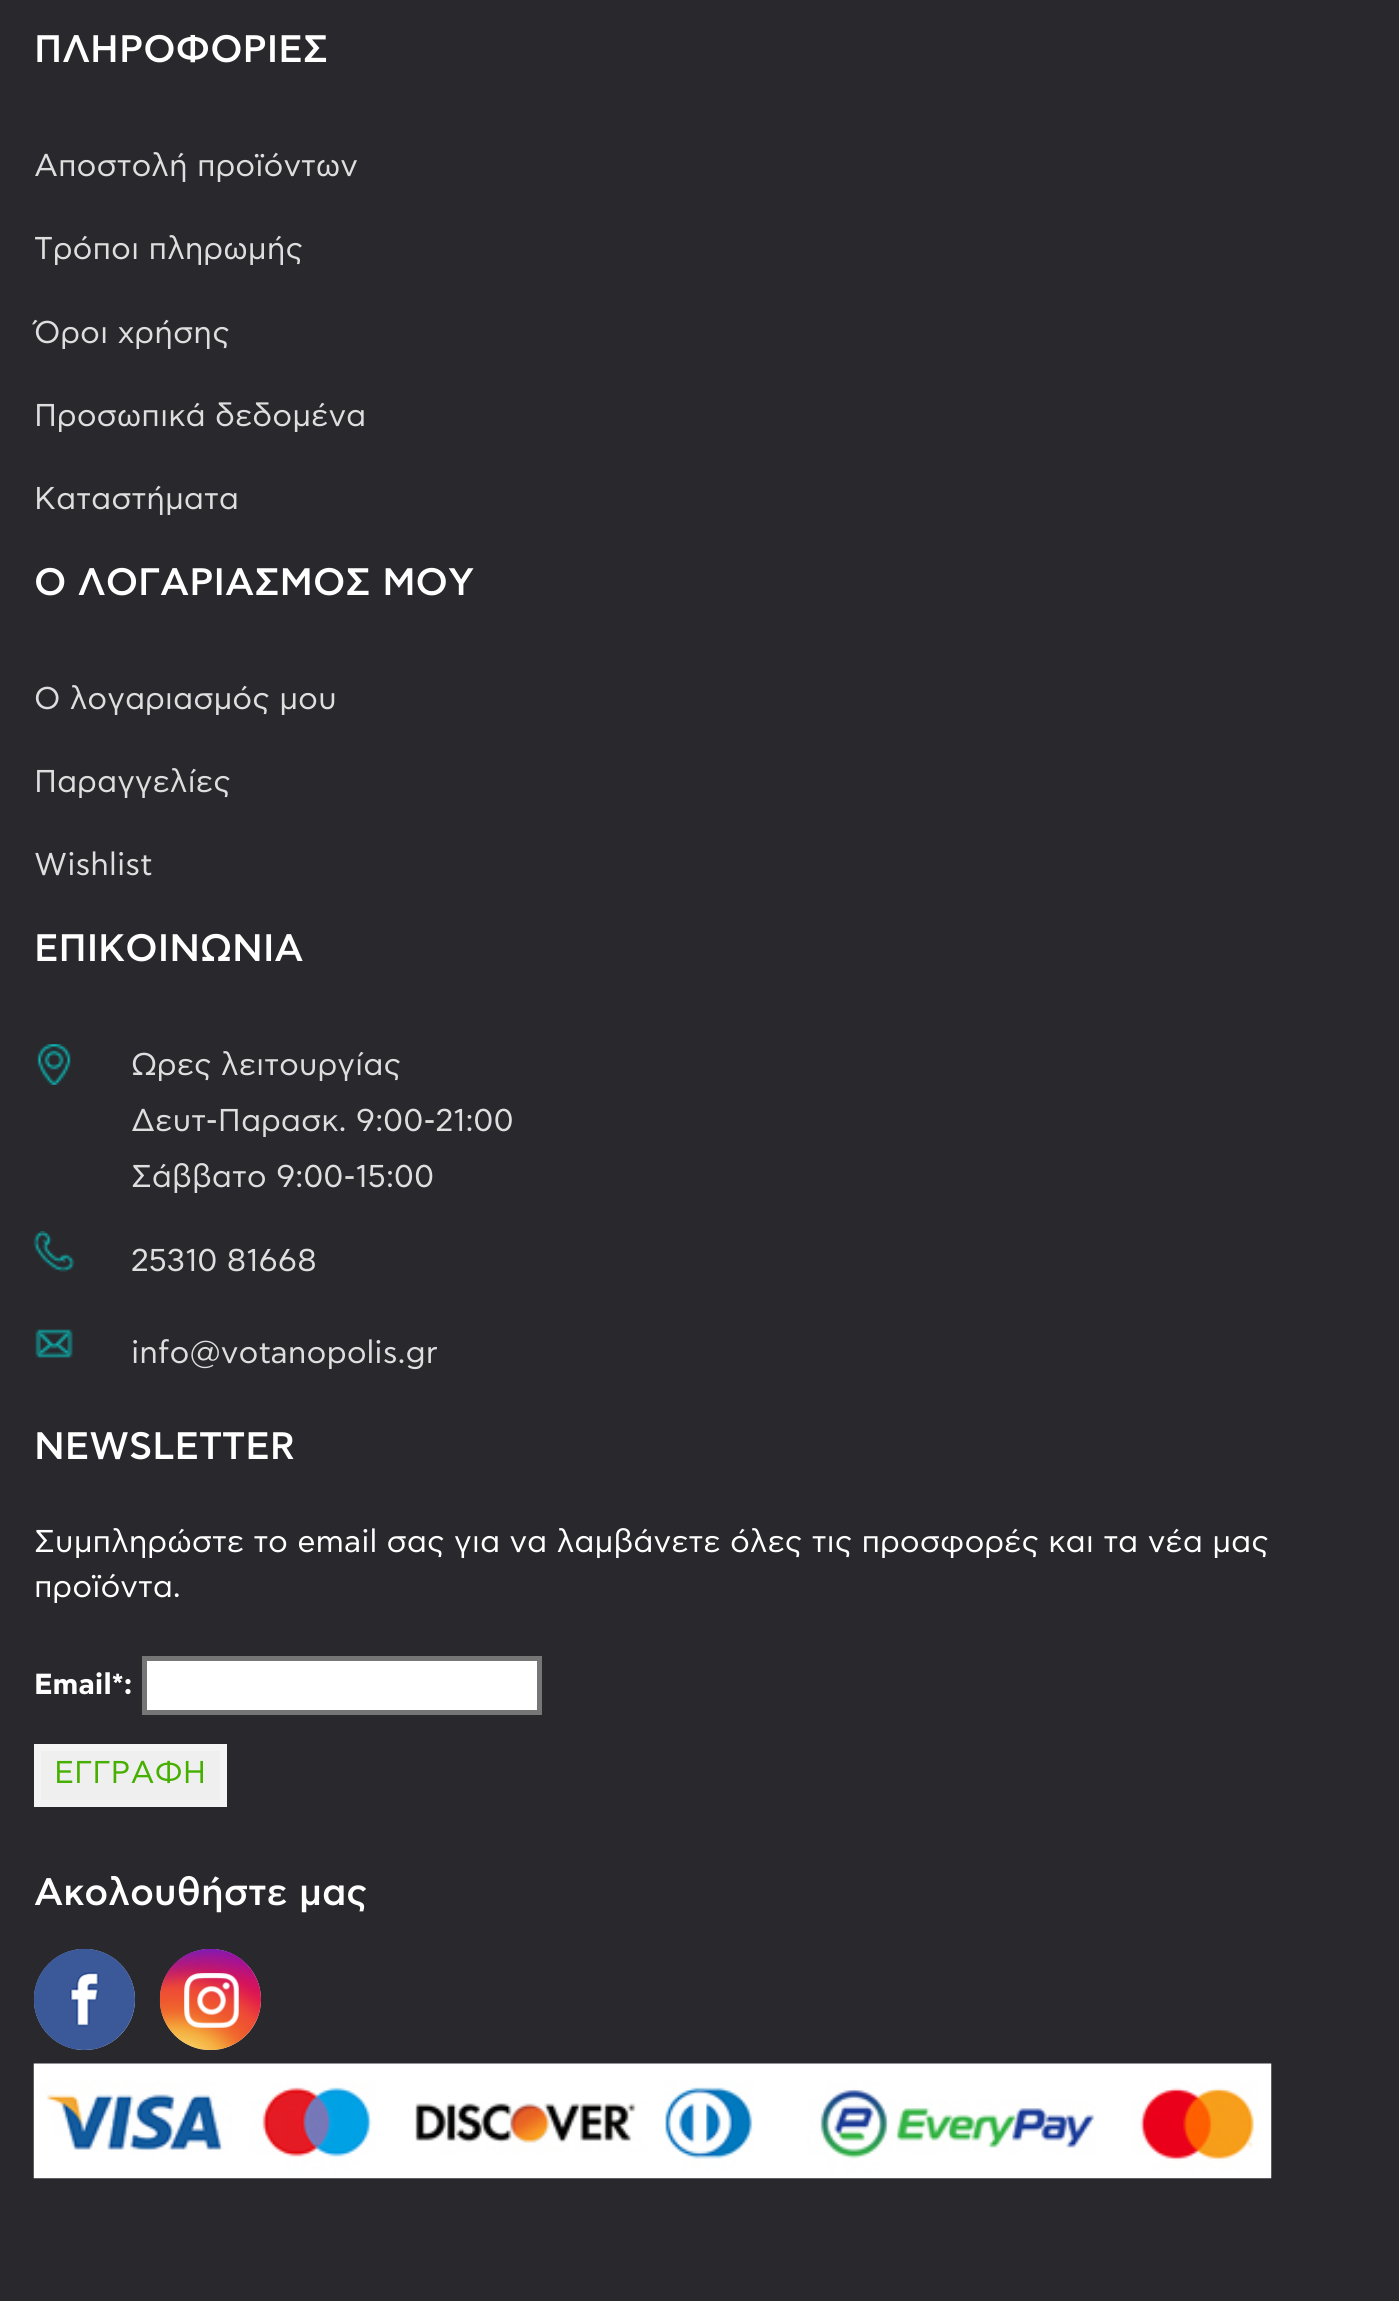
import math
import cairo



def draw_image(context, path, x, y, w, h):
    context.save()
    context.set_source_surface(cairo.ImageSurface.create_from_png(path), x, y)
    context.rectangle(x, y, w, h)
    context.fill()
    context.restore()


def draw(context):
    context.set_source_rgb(40 / 255, 40 / 255, 45 / 255)
    context.paint()
    draw_image(context, "images/1.png", 37, 1044, 34, 41)
    draw_image(context, "images/2.png", 33, 1231, 42, 41)
    draw_image(context, "images/3.png", 35, 1329, 38, 29)
    context.set_source_rgb(1, 1, 1)
    context.rectangle(144.5, 1658.5, 395, 54)
    context.fill_preserve()
    context.set_source_rgb(118 / 255, 118 / 255, 118 / 255)
    context.set_line_width(5)
    context.stroke()
    context.set_source_rgb(239 / 255, 239 / 255, 239 / 255)
    context.rectangle(37.5, 1747.5, 186, 56)
    context.fill_preserve()
    context.set_source_rgb(244 / 255, 244 / 255, 244 / 255)
    context.set_line_width(7)
    context.stroke()
    context.set_source_rgb(236 / 255, 236 / 255, 236 / 255)
    context.arc(84.5, 1999.5, 50.5, 0, 2 * math.pi)
    context.fill()
    draw_image(context, "images/4.png", 33, 1948, 102, 102)
    context.arc(210.5, 1999.5, 50.5, 0, 2 * math.pi)
    context.fill()
    draw_image(context, "images/5.png", 159, 1948, 102, 102)
    draw_image(context, "images/6.png", 33, 2063, 1239, 116)
    context.select_font_face("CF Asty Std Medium")
    context.set_font_size(38.25)
    context.set_source_rgb(1, 1, 1)
    context.move_to(34, 62)
    context.show_text("ΠΛΗΡΟΦΟΡΙΕΣ")
    context.select_font_face("CFAstyStd")
    context.set_font_size(31.5)
    context.set_source_rgb(222 / 255, 222 / 255, 222 / 255)
    context.move_to(34, 176)
    context.show_text("Αποστολή προϊόντων")
    context.move_to(34, 259)
    context.show_text("Τρόποι πληρωμής")
    context.move_to(34, 343)
    context.show_text("Όροι χρήσης")
    context.move_to(34, 426)
    context.show_text("Προσωπικά δεδομένα")
    context.move_to(34, 509)
    context.show_text("Καταστήματα")
    context.select_font_face("CF Asty Std Medium")
    context.set_font_size(38.25)
    context.set_source_rgb(1, 1, 1)
    context.move_to(34, 595)
    context.show_text("Ο ΛΟΓΑΡΙΑΣΜΟΣ ΜΟΥ")
    context.select_font_face("CFAstyStd")
    context.set_font_size(31.5)
    context.set_source_rgb(222 / 255, 222 / 255, 222 / 255)
    context.move_to(34, 709)
    context.show_text("Ο λογαριασμός μου")
    context.move_to(34, 792)
    context.show_text("Παραγγελίες")
    context.move_to(34, 875)
    context.show_text("Wishlist")
    context.select_font_face("CF Asty Std Medium")
    context.set_font_size(38.25)
    context.set_source_rgb(1, 1, 1)
    context.move_to(34, 961)
    context.show_text("ΕΠΙΚΟΙΝΩΝΙΑ")
    context.select_font_face("CFAstyStd")
    context.set_font_size(31.5)
    context.set_source_rgb(222 / 255, 222 / 255, 222 / 255)
    context.move_to(131, 1075)
    context.show_text("Ωρες λειτουργίας")
    context.move_to(131, 1131)
    context.show_text("Δευτ-Παρασκ. 9:00-21:00")
    context.move_to(131, 1187)
    context.show_text("Σάββατο 9:00-15:00")
    context.move_to(131, 1271)
    context.show_text("25310 81668")
    context.move_to(131, 1363)
    context.show_text("info@votanopolis.gr")
    context.select_font_face("CF Asty Std Medium")
    context.set_font_size(38.25)
    context.set_source_rgb(1, 1, 1)
    context.move_to(34, 1459)
    context.show_text("NEWSLETTER")
    context.select_font_face("CFAstyStd")
    context.set_font_size(31.5)
    context.move_to(34, 1552)
    context.show_text("Συμπληρώστε το email σας για να λαμβάνετε όλες τις προσφορές και τα νέα μας")
    context.move_to(34, 1597)
    context.show_text("προϊόντα.")
    context.select_font_face("CFAstyStd", cairo.FontSlant.NORMAL, cairo.FontWeight.BOLD)
    context.set_font_size(29)
    context.move_to(34, 1694)
    context.show_text("Email*:")
    context.select_font_face("CFAstyStd")
    context.set_font_size(31.5)
    context.set_source_rgb(70 / 255, 175 / 255, 0)
    context.move_to(54, 1783)
    context.show_text("EΓΓPAΦH")
    context.select_font_face("CF Asty Std Medium")
    context.set_font_size(38.25)
    context.set_source_rgb(1, 1, 1)
    context.move_to(34, 1905)
    context.show_text("Ακολουθήστε μας")


surface = cairo.ImageSurface(cairo.Format.RGB24, 1399, 2301)
context = cairo.Context(surface)
options = cairo.FontOptions()
options.set_hint_metrics(cairo.HintMetrics.OFF)
options.set_hint_style(cairo.HintStyle.NONE)
context.set_font_options(options)
context.set_miter_limit(4)
draw(context)
surface.write_to_png("out.png")
